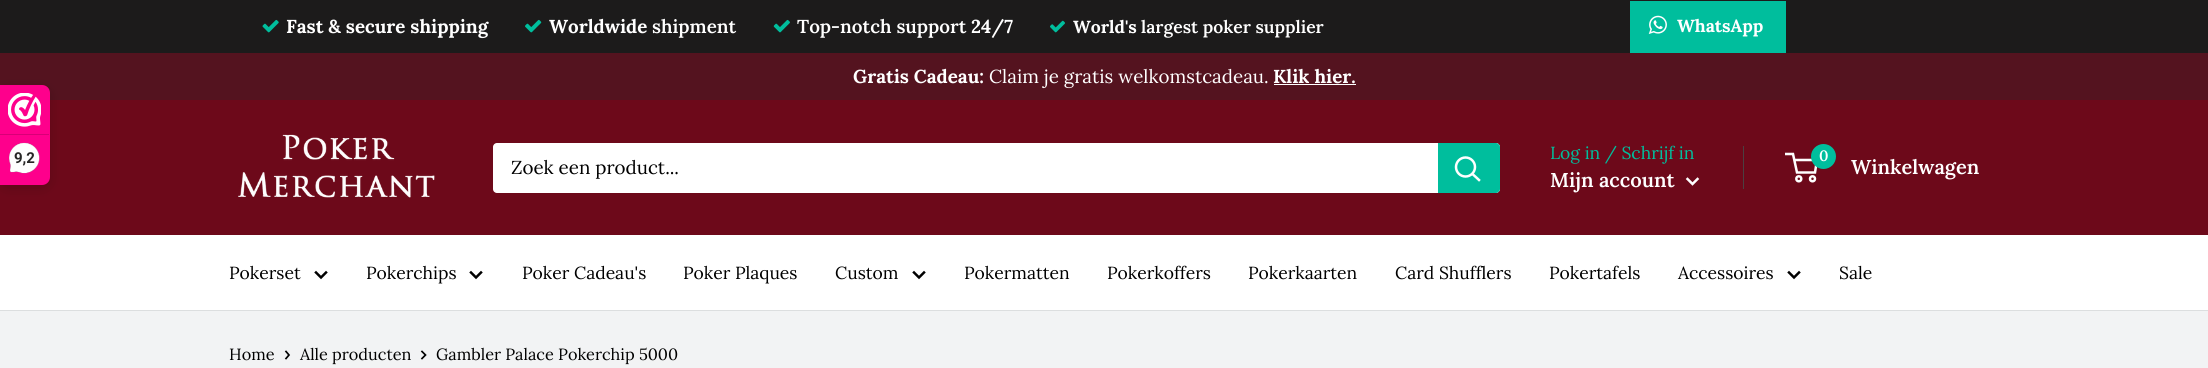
import math
import cairo



def rounded_rect(context, x, y, w, h, r):
    context.new_sub_path()
    for i, (u, v) in enumerate([(x + w - r, y + h - r), (x + r, y + h - r), (x + r, y + r), (x + w - r, y + r)]):
        context.arc(u, v, r, i * math.pi / 2, (i + 1) * math.pi / 2)
    context.close_path()


def draw_shadow(context, x, y, w, h, r, blur, alpha):
    context.push_group_with_content(cairo.Content.ALPHA)
    context.set_operator(cairo.Operator.SOURCE)
    for i in range(15, -16, -2):
        e = blur * i / 6
        if min(w, h) + 2 * e > 0:
            context.set_source_rgba(0, 0, 0, alpha * math.erfc((i - 1) / 8.5) / 2)
            rounded_rect(context, x - e, y - e, w + 2 * e, h + 2 * e, max(0, min(r + e + blur * .6, min(w, h) / 2 + e)))
            context.fill()
    context.mask(context.pop_group())


def draw_image(context, path, x, y, w, h):
    context.save()
    context.set_source_surface(cairo.ImageSurface.create_from_png(path), x, y)
    context.rectangle(x, y, w, h)
    context.fill()
    context.restore()


def draw(context):
    context.set_source_rgb(242 / 255, 243 / 255, 244 / 255)
    context.paint()
    context.set_source_rgb(28 / 255, 27 / 255, 27 / 255)
    context.rectangle(0, 0, 2208, 53)
    context.fill()
    draw_image(context, "images/1.png", 262, 19, 17, 14)
    draw_image(context, "images/2.png", 525, 19, 17, 14)
    draw_image(context, "images/3.png", 773, 19, 17, 14)
    draw_image(context, "images/4.png", 1050, 20, 15, 13)
    context.set_source_rgb(0, 190 / 255, 157 / 255)
    context.rectangle(1630, 1, 156, 52)
    context.fill()
    draw_image(context, "images/5.png", 1648, 15, 19, 19)
    context.set_source_rgb(84 / 255, 19 / 255, 31 / 255)
    context.rectangle(0, 53, 2208, 47)
    context.fill()
    context.set_source_rgb(109 / 255, 9 / 255, 26 / 255)
    context.rectangle(0, 100, 2208, 135)
    context.fill()
    context.set_source_rgb(0, 0, 0)
    draw_shadow(context, 0, 88, 50, 100, 8, 6, 0.15)
    context.set_source_rgb(254 / 255, 0, 140 / 255)
    context.new_path()
    context.move_to(0, 85)
    context.line_to(42, 85)
    context.curve_to(46.5, 85, 50, 88.5, 50, 93)
    context.line_to(50, 177)
    context.curve_to(50, 181.5, 46.5, 185, 42, 185)
    context.line_to(0, 185)
    context.close_path()
    context.fill()
    draw_image(context, "images/6.png", 8, 93, 33, 34)
    context.set_source_rgb(216 / 255, 0, 119 / 255)
    context.rectangle(0, 134, 49, 1)
    context.fill()
    draw_image(context, "images/7.png", 9, 142, 31, 32)
    context.set_source_rgb(1, 1, 1)
    context.rectangle(1274, 84, 82, 1)
    context.fill()
    draw_image(context, "images/8.png", 238, 134, 197, 64)
    rounded_rect(context, 493, 143, 1007, 50, 4)
    context.fill()
    context.set_source_rgb(0, 190 / 255, 157 / 255)
    context.new_path()
    context.move_to(1438, 143)
    context.line_to(1496, 143)
    context.curve_to(1498, 143, 1500, 145, 1500, 147)
    context.line_to(1500, 189)
    context.curve_to(1500, 191, 1498, 193, 1496, 193)
    context.line_to(1438, 193)
    context.close_path()
    context.fill()
    context.new_path()
    context.move_to(1479, 180)
    context.line_to(1472.5, 174)
    context.set_source_rgb(1, 1, 1)
    context.set_line_width(2.5)
    context.set_line_cap(cairo.LineCap.SQUARE)
    context.stroke()
    context.arc(1465.5, 167, 9.5, 0, 2 * math.pi)
    context.set_line_cap(cairo.LineCap.BUTT)
    context.stroke()
    context.set_source_rgb(76 / 255, 63 / 255, 65 / 255)
    context.rectangle(1743, 146, 1, 43)
    context.fill()
    context.new_path()
    context.move_to(1697.5, 179)
    context.line_to(1692.5, 184)
    context.line_to(1687.5, 179)
    context.set_source_rgb(1, 1, 1)
    context.set_line_cap(cairo.LineCap.SQUARE)
    context.stroke()
    context.arc(1798.8, 178.8, 2.5, 0, 2 * math.pi)
    context.set_line_cap(cairo.LineCap.BUTT)
    context.stroke()
    context.arc(1812.5, 178.8, 2.5, 0, 2 * math.pi)
    context.stroke()
    context.new_path()
    context.move_to(1794, 160)
    context.line_to(1817, 160)
    context.line_to(1815, 172.5)
    context.line_to(1797, 172.5)
    context.line_to(1793, 154)
    context.line_to(1785, 154)
    context.stroke()
    context.set_source_rgb(0, 190 / 255, 157 / 255)
    context.arc(1823.5, 156.5, 12.5, 0, 2 * math.pi)
    context.fill()
    context.set_source_rgb(1, 1, 1)
    context.rectangle(0, 235, 2208, 75)
    context.fill()
    context.set_source_rgb(220 / 255, 222 / 255, 223 / 255)
    context.rectangle(0, 310, 2208, 1)
    context.fill()
    context.new_path()
    context.move_to(326, 272.5)
    context.line_to(321, 277.5)
    context.line_to(316, 272.5)
    context.set_source_rgb(0, 0, 0)
    context.set_line_cap(cairo.LineCap.SQUARE)
    context.stroke()
    context.new_path()
    context.move_to(481, 272.5)
    context.line_to(476, 277.5)
    context.line_to(471, 272.5)
    context.stroke()
    context.new_path()
    context.move_to(924, 272.5)
    context.line_to(919, 277.5)
    context.line_to(914, 272.5)
    context.stroke()
    context.new_path()
    context.move_to(1799, 272.5)
    context.line_to(1794, 277.5)
    context.line_to(1789, 272.5)
    context.stroke()
    context.new_path()
    context.move_to(286, 351.5)
    context.line_to(289, 355)
    context.line_to(286, 358.5)
    context.set_line_width(1.7)
    context.stroke()
    context.new_path()
    context.move_to(422, 351.5)
    context.line_to(425.5, 355)
    context.line_to(422, 358.5)
    context.stroke()
    context.select_font_face("Lora", cairo.FontSlant.NORMAL, cairo.FontWeight.BOLD)
    context.set_font_size(18.75)
    context.set_source_rgb(1, 1, 1)
    context.move_to(286, 33)
    context.show_text("Fast & secure shipping")
    context.move_to(549, 33)
    context.show_text("Worldwide")
    context.select_font_face("Lora SemiBold")
    context.move_to(652, 33)
    context.show_text("shipment")
    context.move_to(797, 33)
    context.show_text("Top-notch support")
    context.select_font_face("Lora", cairo.FontSlant.NORMAL, cairo.FontWeight.BOLD)
    context.move_to(971, 33)
    context.show_text("24/7")
    context.set_font_size(17.5)
    context.move_to(1073, 33)
    context.show_text("World's")
    context.select_font_face("Lora SemiBold")
    context.move_to(1141, 33)
    context.show_text("largest poker supplier")
    context.select_font_face("Lora", cairo.FontSlant.NORMAL, cairo.FontWeight.BOLD)
    context.move_to(1677, 32)
    context.show_text("WhatsApp")
    context.select_font_face("Roboto", cairo.FontSlant.NORMAL, cairo.FontWeight.BOLD)
    context.set_font_size(15)
    context.set_source_rgb(39 / 255, 38 / 255, 38 / 255)
    context.move_to(14, 163)
    context.show_text("9,2")
    context.select_font_face("Lora", cairo.FontSlant.NORMAL, cairo.FontWeight.BOLD)
    context.set_font_size(18.75)
    context.set_source_rgb(1, 1, 1)
    context.move_to(853, 83)
    context.show_text("Gratis Cadeau:")
    context.select_font_face("Lora")
    context.move_to(989, 83)
    context.show_text("Claim je gratis welkomstcadeau.")
    context.select_font_face("Lora", cairo.FontSlant.NORMAL, cairo.FontWeight.BOLD)
    context.move_to(1273, 83)
    context.show_text("Klik hier.")
    context.select_font_face("Lora")
    context.set_source_rgb(0, 0, 0)
    context.move_to(511, 174)
    context.show_text("Zoek een product...")
    context.set_font_size(17.5)
    context.set_source_rgb(0, 190 / 255, 157 / 255)
    context.move_to(1550, 159)
    context.show_text("Log in / Schrijf in")
    context.select_font_face("Lora SemiBold")
    context.set_font_size(20)
    context.set_source_rgb(1, 1, 1)
    context.move_to(1550, 187)
    context.show_text("Mijn account")
    context.set_font_size(15)
    context.move_to(1819, 161)
    context.show_text("0")
    context.set_font_size(20)
    context.move_to(1851, 174)
    context.show_text("Winkelwagen")
    context.select_font_face("Lora")
    context.set_font_size(17.5)
    context.set_source_rgb(0, 0, 0)
    context.move_to(229, 279)
    context.show_text("Pokerset")
    context.move_to(366, 279)
    context.show_text("Pokerchips")
    context.move_to(522, 279)
    context.show_text("Poker Cadeau's")
    context.move_to(683, 279)
    context.show_text("Poker Plaques")
    context.move_to(835, 279)
    context.show_text("Custom")
    context.move_to(964, 279)
    context.show_text("Pokermatten")
    context.move_to(1107, 279)
    context.show_text("Pokerkoffers")
    context.move_to(1248, 279)
    context.show_text("Pokerkaarten")
    context.move_to(1395, 279)
    context.show_text("Card Shufflers")
    context.move_to(1549, 279)
    context.show_text("Pokertafels")
    context.move_to(1678, 279)
    context.show_text("Accessoires")
    context.move_to(1839, 279)
    context.show_text("Sale")
    context.set_font_size(16.25)
    context.move_to(229, 360)
    context.show_text("Home")
    context.move_to(300, 360)
    context.show_text("Alle producten")
    context.move_to(436, 360)
    context.show_text("Gambler Palace Pokerchip 5000")


surface = cairo.ImageSurface(cairo.Format.RGB24, 2208, 368)
context = cairo.Context(surface)
options = cairo.FontOptions()
options.set_hint_metrics(cairo.HintMetrics.OFF)
options.set_hint_style(cairo.HintStyle.NONE)
context.set_font_options(options)
context.set_miter_limit(4)
draw(context)
surface.write_to_png("out.png")
